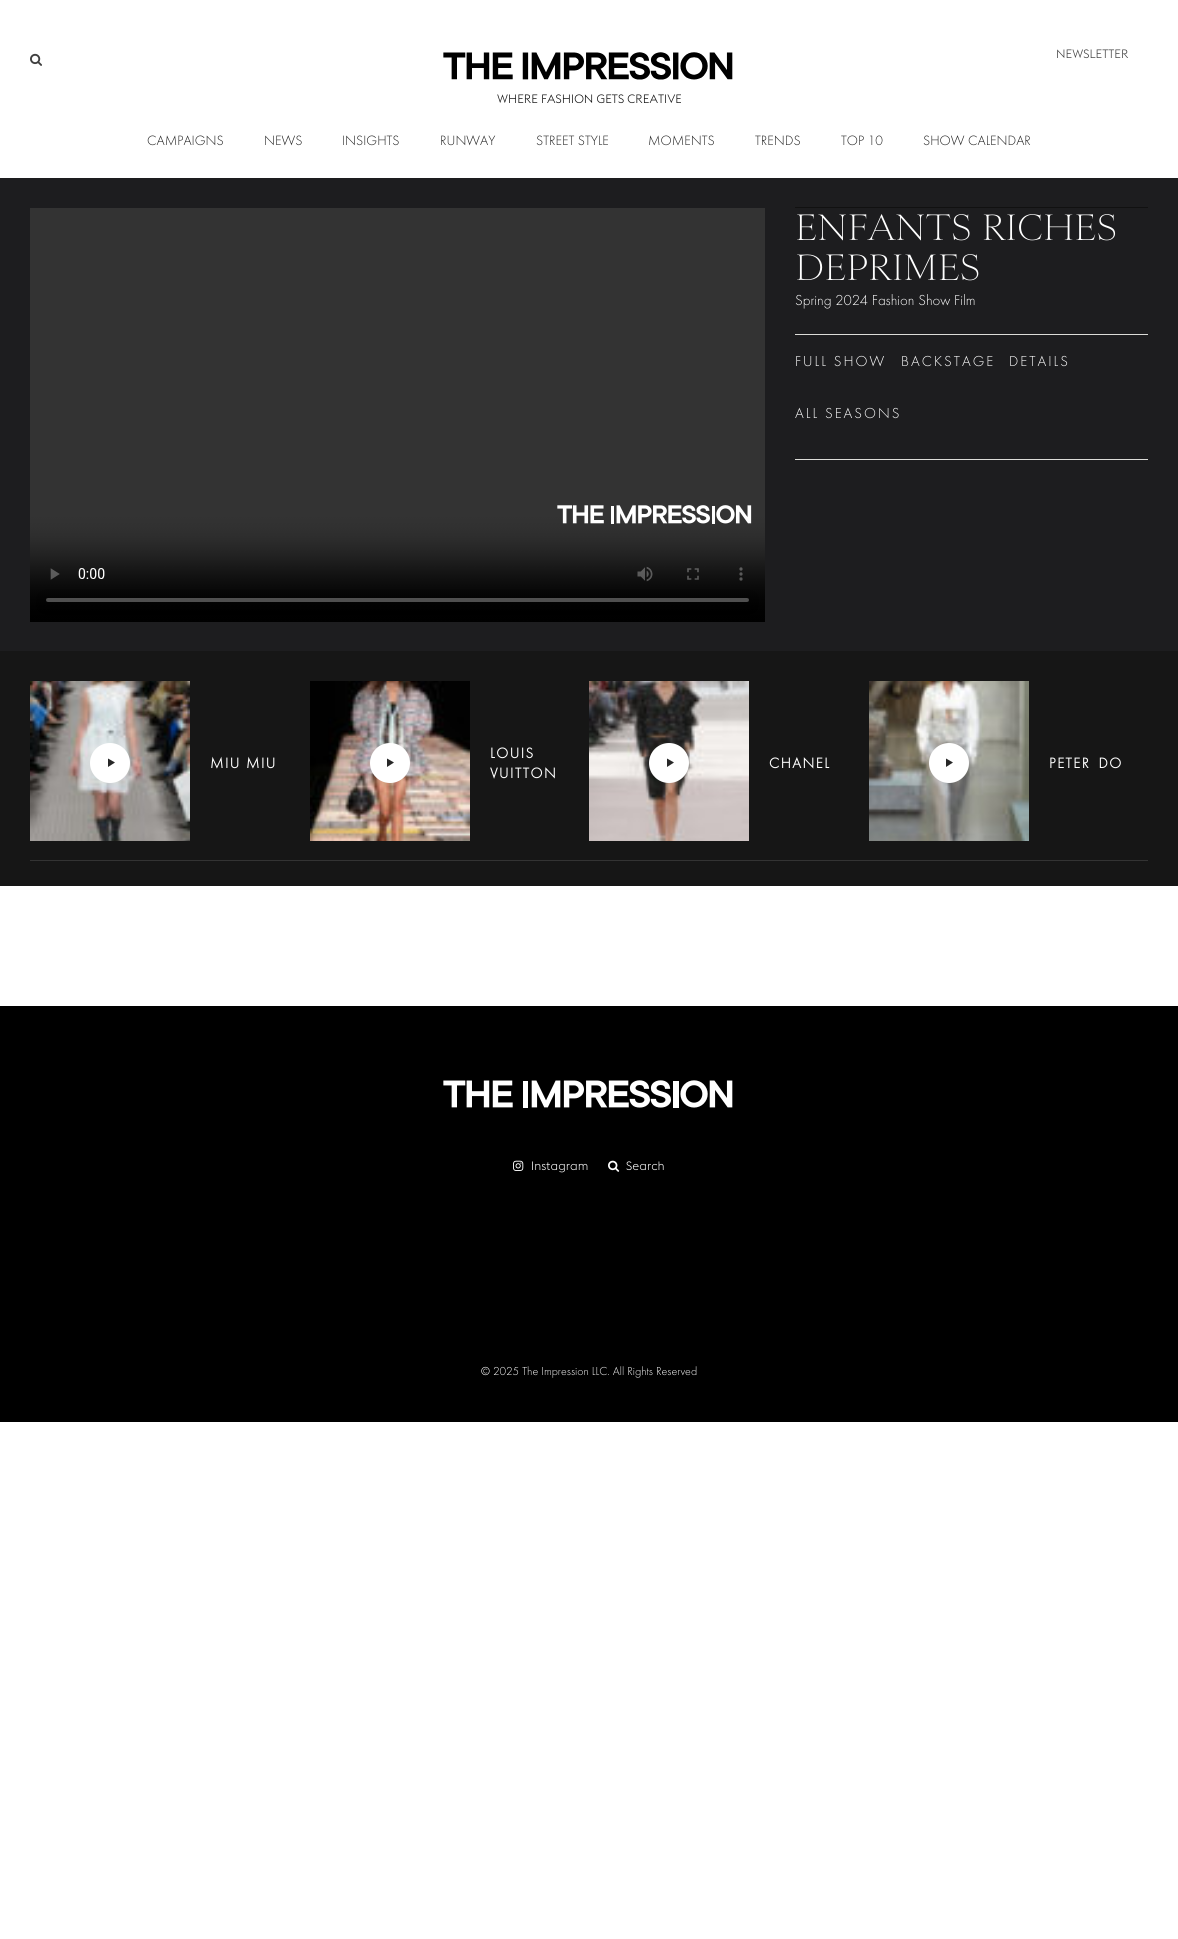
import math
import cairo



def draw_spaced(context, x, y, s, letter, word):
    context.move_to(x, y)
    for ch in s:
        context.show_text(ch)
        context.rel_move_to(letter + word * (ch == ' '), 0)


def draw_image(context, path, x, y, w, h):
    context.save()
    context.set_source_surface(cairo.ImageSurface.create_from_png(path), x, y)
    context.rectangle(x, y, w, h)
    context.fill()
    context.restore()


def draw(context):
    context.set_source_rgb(1, 1, 1)
    context.paint()
    draw_image(context, "images/1.png", 30, 53, 12, 13)
    draw_image(context, "images/2.png", 443, 52, 290, 28)
    context.set_source_rgb(29 / 255, 29 / 255, 31 / 255)
    context.rectangle(0, 178, 1178, 473)
    context.fill()
    draw_image(context, "images/3.png", 30, 208, 735, 414)
    draw_image(context, "images/4.png", 557, 505, 195, 19)
    context.set_source_rgb(17 / 255, 17 / 255, 17 / 255)
    context.rectangle(795, 207, 353, 1)
    context.fill()
    context.set_source_rgb(220 / 255, 220 / 255, 216 / 255)
    context.rectangle(795, 334, 353, 1)
    context.fill()
    context.rectangle(795, 459, 353, 1)
    context.fill()
    context.set_source_rgb(22 / 255, 22 / 255, 22 / 255)
    context.rectangle(0, 651, 1178, 235)
    context.fill()
    context.set_source_rgb(51 / 255, 51 / 255, 51 / 255)
    context.rectangle(30, 860, 1118, 1)
    context.fill()
    draw_image(context, "images/5.png", 30, 681, 160, 160)
    context.set_source_rgb(1, 1, 1)
    context.arc(110, 763, 20, 0, 2 * math.pi)
    context.fill()
    context.set_source_rgb(39 / 255, 39 / 255, 39 / 255)
    context.new_path()
    context.move_to(108, 758.5)
    context.line_to(115, 762.5)
    context.line_to(108, 767)
    context.close_path()
    context.fill()
    draw_image(context, "images/6.png", 310, 681, 160, 160)
    context.set_source_rgb(1, 1, 1)
    context.arc(390, 763, 20, 0, 2 * math.pi)
    context.fill()
    context.set_source_rgb(39 / 255, 39 / 255, 39 / 255)
    context.new_path()
    context.move_to(387, 758.5)
    context.line_to(394, 762.5)
    context.line_to(387, 767)
    context.close_path()
    context.fill()
    draw_image(context, "images/7.png", 589, 681, 160, 160)
    context.set_source_rgb(1, 1, 1)
    context.arc(669, 763, 20, 0, 2 * math.pi)
    context.fill()
    context.set_source_rgb(39 / 255, 39 / 255, 39 / 255)
    context.new_path()
    context.move_to(667, 758.5)
    context.line_to(674, 762.5)
    context.line_to(667, 767)
    context.close_path()
    context.fill()
    draw_image(context, "images/8.png", 869, 681, 160, 160)
    context.set_source_rgb(1, 1, 1)
    context.arc(949, 763, 20, 0, 2 * math.pi)
    context.fill()
    context.set_source_rgb(39 / 255, 39 / 255, 39 / 255)
    context.new_path()
    context.move_to(946, 758.5)
    context.line_to(953, 762.5)
    context.line_to(946, 767)
    context.close_path()
    context.fill()
    context.set_source_rgb(0, 0, 0)
    context.rectangle(0, 1006, 1178, 416)
    context.fill()
    draw_image(context, "images/9.png", 443, 1080, 290, 28)
    draw_image(context, "images/10.png", 513, 1160, 11, 11)
    draw_image(context, "images/11.png", 608, 1160, 12, 12)
    context.select_font_face("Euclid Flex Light")
    context.set_font_size(12)
    context.set_source_rgb(63 / 255, 63 / 255, 63 / 255)
    context.move_to(1056, 58)
    context.show_text("NEWSLETTER")
    context.set_source_rgb(17 / 255, 17 / 255, 17 / 255)
    context.move_to(497, 103)
    context.show_text("WHERE FASHION GETS CREATIVE")
    context.select_font_face("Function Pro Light")
    context.set_font_size(14)
    context.set_source_rgb(30 / 255, 30 / 255, 30 / 255)
    context.move_to(147, 145)
    context.show_text("CAMPAIGNS")
    context.move_to(264, 145)
    context.show_text("NEWS")
    context.move_to(342, 145)
    context.show_text("INSIGHTS")
    context.move_to(440, 145)
    context.show_text("RUNWAY")
    context.move_to(536, 145)
    context.show_text("STREET STYLE")
    context.move_to(648, 145)
    context.show_text("MOMENTS")
    context.move_to(755, 145)
    context.show_text("TRENDS")
    context.move_to(841, 145)
    context.show_text("TOP 10")
    context.move_to(923, 145)
    context.show_text("SHOW CALENDAR")
    context.select_font_face("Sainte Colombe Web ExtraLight")
    context.set_font_size(34)
    context.set_source_rgb(1, 1, 1)
    context.move_to(795, 240)
    context.show_text("ENFANTS RICHES")
    context.move_to(795, 280)
    context.show_text("DEPRIMES")
    context.select_font_face("Function Pro Light")
    context.set_font_size(15)
    context.move_to(795, 305)
    context.show_text("Spring 2024 Fashion Show Film")
    draw_spaced(context, 795, 366, "FULL SHOW", 2, 0)
    draw_spaced(context, 901, 366, "BACKSTAGE", 2, 0)
    draw_spaced(context, 1009, 366, "DETAILS", 2, 0)
    draw_spaced(context, 795, 418, "ALL SEASONS", 2, 0)
    context.select_font_face("Function Pro", cairo.FontSlant.NORMAL, cairo.FontWeight.BOLD)
    draw_spaced(context, 210, 768, "MIU MIU", 1.5, 0)
    draw_spaced(context, 490, 758, "LOUIS", 1.5, 0)
    draw_spaced(context, 490, 778, "VUITTON", 1.5, 0)
    draw_spaced(context, 769, 768, "CHANEL", 1.5, 0)
    draw_spaced(context, 1049, 768, "PETER DO", 1.5, 3)
    context.select_font_face("Euclid Flex Light")
    context.set_font_size(12)
    context.move_to(531, 1170)
    context.show_text("Instagram")
    context.move_to(626, 1170)
    context.show_text("Search")
    context.select_font_face("Function Pro Light")
    context.move_to(481, 1375)
    context.show_text("© 2025 The Impression LLC. All Rights Reserved")


surface = cairo.ImageSurface(cairo.Format.RGB24, 1178, 1939)
context = cairo.Context(surface)
options = cairo.FontOptions()
options.set_hint_metrics(cairo.HintMetrics.OFF)
options.set_hint_style(cairo.HintStyle.NONE)
context.set_font_options(options)
context.set_miter_limit(4)
draw(context)
surface.write_to_png("out.png")
